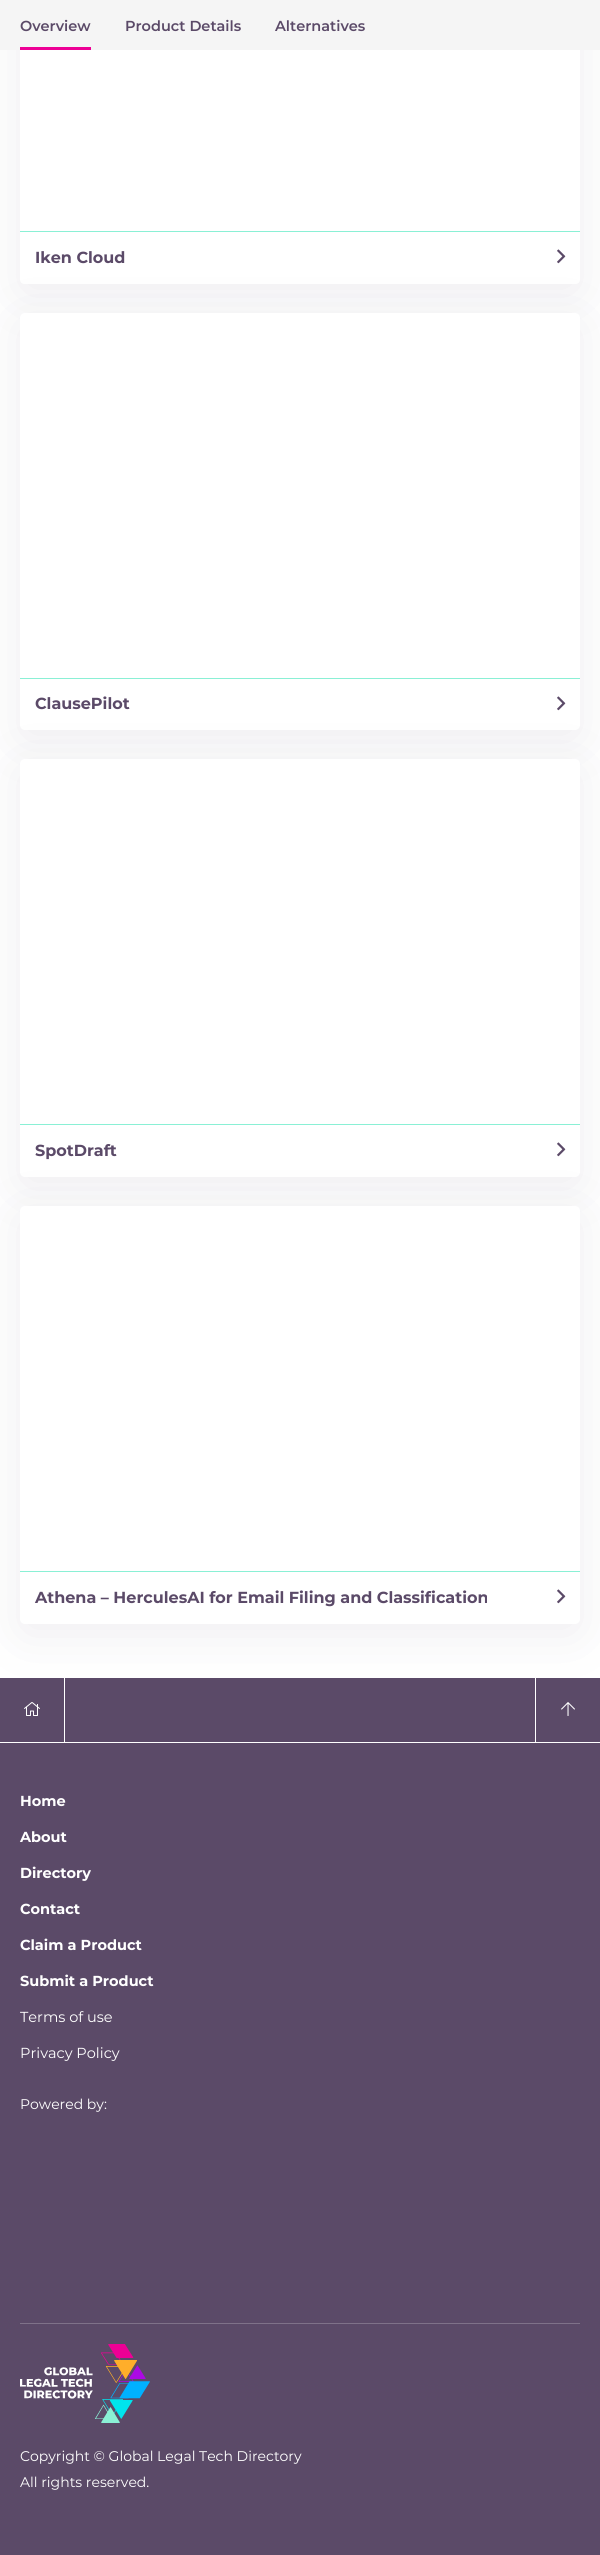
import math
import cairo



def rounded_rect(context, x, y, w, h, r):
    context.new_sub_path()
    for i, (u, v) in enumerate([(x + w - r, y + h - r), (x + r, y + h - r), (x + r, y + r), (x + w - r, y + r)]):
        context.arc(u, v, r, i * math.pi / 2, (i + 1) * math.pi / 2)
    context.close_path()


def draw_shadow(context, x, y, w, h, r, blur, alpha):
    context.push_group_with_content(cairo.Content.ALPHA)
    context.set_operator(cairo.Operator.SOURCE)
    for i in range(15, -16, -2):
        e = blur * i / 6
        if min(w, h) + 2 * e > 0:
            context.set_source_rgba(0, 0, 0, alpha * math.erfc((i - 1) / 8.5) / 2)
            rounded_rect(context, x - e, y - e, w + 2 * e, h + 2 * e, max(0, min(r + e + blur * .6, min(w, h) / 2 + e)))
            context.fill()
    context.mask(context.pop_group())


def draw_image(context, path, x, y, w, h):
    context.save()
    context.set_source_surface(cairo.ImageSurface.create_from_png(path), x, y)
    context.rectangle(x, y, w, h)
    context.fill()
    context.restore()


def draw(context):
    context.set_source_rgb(1, 1, 1)
    context.paint()
    context.save()
    context.set_fill_rule(cairo.FillRule.EVEN_ODD)
    context.new_path()
    context.move_to(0, 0)
    context.line_to(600, 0)
    context.line_to(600, 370)
    context.line_to(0, 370)
    context.close_path()
    context.move_to(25, -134)
    context.line_to(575, -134)
    context.curve_to(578, -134, 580, -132, 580, -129)
    context.line_to(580, 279)
    context.curve_to(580, 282, 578, 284, 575, 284)
    context.line_to(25, 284)
    context.curve_to(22, 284, 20, 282, 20, 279)
    context.line_to(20, -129)
    context.curve_to(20, -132, 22, -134, 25, -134)
    context.close_path()
    context.clip()
    context.set_source_rgb(91 / 255, 74 / 255, 104 / 255)
    draw_shadow(context, 20, -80, 560, 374, 5, 25, 0.1)
    context.restore()
    context.set_source_rgb(245 / 255, 245 / 255, 245 / 255)
    context.rectangle(0, 0, 600, 50)
    context.fill()
    context.set_source_rgb(237 / 255, 0, 149 / 255)
    context.rectangle(20, 47, 71, 3)
    context.fill()
    context.set_source_rgb(138 / 255, 240 / 255, 213 / 255)
    context.rectangle(20, 231, 560, 1)
    context.fill()
    draw_image(context, "images/1.png", 557, 249, 9, 15)
    context.set_source_rgb(91 / 255, 74 / 255, 104 / 255)
    draw_shadow(context, 20, 323, 560, 417, 5, 25, 0.1)
    context.set_source_rgb(1, 1, 1)
    rounded_rect(context, 20, 313, 560, 417, 5)
    context.fill()
    context.set_source_rgb(138 / 255, 240 / 255, 213 / 255)
    context.rectangle(20, 678, 560, 1)
    context.fill()
    draw_image(context, "images/1.png", 557, 696, 9, 15)
    context.set_source_rgb(91 / 255, 74 / 255, 104 / 255)
    draw_shadow(context, 20, 769, 560, 418, 5, 25, 0.1)
    context.set_source_rgb(1, 1, 1)
    rounded_rect(context, 20, 759, 560, 418, 5)
    context.fill()
    context.set_source_rgb(138 / 255, 240 / 255, 213 / 255)
    context.rectangle(20, 1124, 560, 1)
    context.fill()
    draw_image(context, "images/1.png", 557, 1142, 9, 15)
    context.set_source_rgb(91 / 255, 74 / 255, 104 / 255)
    draw_shadow(context, 20, 1216, 560, 418, 5, 25, 0.1)
    context.set_source_rgb(1, 1, 1)
    rounded_rect(context, 20, 1206, 560, 418, 5)
    context.fill()
    context.set_source_rgb(138 / 255, 240 / 255, 213 / 255)
    context.rectangle(20, 1571, 560, 1)
    context.fill()
    draw_image(context, "images/1.png", 557, 1589, 9, 15)
    context.set_source_rgb(91 / 255, 74 / 255, 104 / 255)
    context.rectangle(0, 1678, 600, 64)
    context.fill()
    context.set_source_rgb(1, 1, 1)
    context.rectangle(64, 1678, 1, 64)
    context.fill()
    draw_image(context, "images/2.png", 24, 1702, 16, 14)
    context.rectangle(535, 1678, 1, 64)
    context.fill()
    draw_image(context, "images/3.png", 561, 1702, 14, 14)
    context.set_source_rgb(91 / 255, 74 / 255, 104 / 255)
    context.rectangle(0, 1743, 600, 812)
    context.fill()
    context.set_source_rgb(127 / 255, 114 / 255, 137 / 255)
    context.rectangle(20, 2323, 560, 1)
    context.fill()
    draw_image(context, "images/4.png", 20, 2344, 130, 79)
    context.select_font_face("Montserrat SemiBold")
    context.set_font_size(14.5)
    context.set_source_rgb(91 / 255, 74 / 255, 104 / 255)
    context.move_to(20, 31)
    context.show_text("Overview")
    context.move_to(125, 31)
    context.show_text("Product Details")
    context.move_to(275, 31)
    context.show_text("Alternatives")
    context.select_font_face("Montserrat", cairo.FontSlant.NORMAL, cairo.FontWeight.BOLD)
    context.set_font_size(16)
    context.move_to(35, 263)
    context.show_text("Iken Cloud")
    context.move_to(35, 709)
    context.show_text("ClausePilot")
    context.move_to(35, 1156)
    context.show_text("SpotDraft")
    context.move_to(35, 1603)
    context.show_text("Athena – HerculesAI for Email Filing and Classification")
    context.set_font_size(14.5)
    context.set_source_rgb(1, 1, 1)
    context.move_to(20, 1806)
    context.show_text("Home")
    context.move_to(20, 1842)
    context.show_text("About")
    context.move_to(20, 1878)
    context.show_text("Directory")
    context.move_to(20, 1914)
    context.show_text("Contact")
    context.move_to(20, 1950)
    context.show_text("Claim a Product")
    context.move_to(20, 1986)
    context.show_text("Submit a Product")
    context.select_font_face("Montserrat")
    context.move_to(20, 2022)
    context.show_text("Terms of use")
    context.move_to(20, 2058)
    context.show_text("Privacy Policy")
    context.set_font_size(14)
    context.move_to(20, 2109)
    context.show_text("Powered by:")
    context.move_to(20, 2461)
    context.show_text("Copyright © Global Legal Tech Directory")
    context.move_to(20, 2487)
    context.show_text("All rights reserved.")


surface = cairo.ImageSurface(cairo.Format.RGB24, 600, 2555)
context = cairo.Context(surface)
options = cairo.FontOptions()
options.set_hint_metrics(cairo.HintMetrics.OFF)
options.set_hint_style(cairo.HintStyle.NONE)
context.set_font_options(options)
context.set_miter_limit(4)
draw(context)
surface.write_to_png("out.png")
